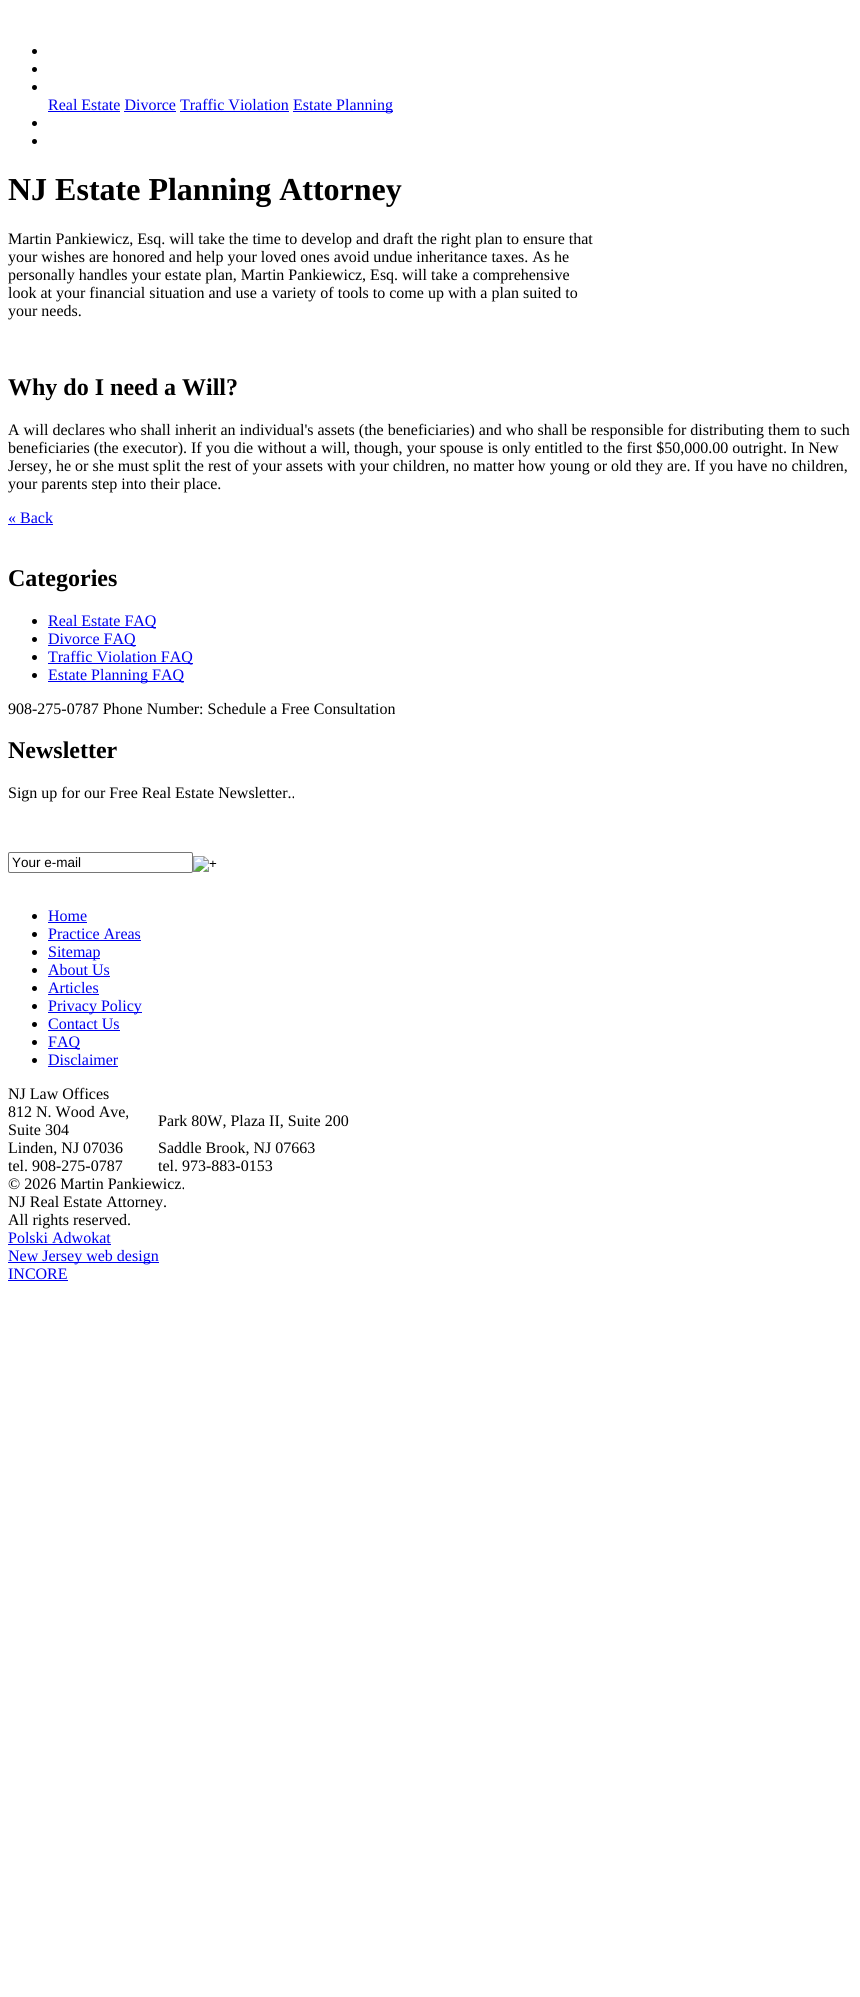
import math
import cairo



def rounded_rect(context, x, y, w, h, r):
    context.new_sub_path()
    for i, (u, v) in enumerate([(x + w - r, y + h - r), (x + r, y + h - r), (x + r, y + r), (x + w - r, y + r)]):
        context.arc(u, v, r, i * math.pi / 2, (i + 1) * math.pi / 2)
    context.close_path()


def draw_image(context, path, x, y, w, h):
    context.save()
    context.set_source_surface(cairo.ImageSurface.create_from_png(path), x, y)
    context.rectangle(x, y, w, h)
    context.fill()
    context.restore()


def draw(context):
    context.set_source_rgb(1, 1, 1)
    context.paint()
    context.set_source_rgb(0, 0, 0)
    context.arc(34.5, 51.5, 2.5, 0, 2 * math.pi)
    context.fill()
    context.arc(34.5, 69.5, 2.5, 0, 2 * math.pi)
    context.fill()
    context.arc(34.5, 87.5, 2.5, 0, 2 * math.pi)
    context.fill()
    context.set_source_rgb(0, 0, 238 / 255)
    context.rectangle(48, 111, 72, 1)
    context.fill()
    context.rectangle(293, 111, 100, 1)
    context.fill()
    context.rectangle(124, 111, 52, 1)
    context.fill()
    context.rectangle(180, 111, 109, 1)
    context.fill()
    context.set_source_rgb(0, 0, 0)
    context.arc(34.5, 123.5, 2.5, 0, 2 * math.pi)
    context.fill()
    context.arc(34.5, 141.5, 2.5, 0, 2 * math.pi)
    context.fill()
    context.set_source_rgb(0, 0, 238 / 255)
    context.rectangle(8, 524, 45, 1)
    context.fill()
    context.set_source_rgb(0, 0, 0)
    context.arc(34.5, 621.5, 2.5, 0, 2 * math.pi)
    context.fill()
    context.set_source_rgb(0, 0, 238 / 255)
    context.rectangle(48, 627, 108, 1)
    context.fill()
    context.set_source_rgb(0, 0, 0)
    context.arc(34.5, 639.5, 2.5, 0, 2 * math.pi)
    context.fill()
    context.set_source_rgb(0, 0, 238 / 255)
    context.rectangle(48, 645, 88, 1)
    context.fill()
    context.set_source_rgb(0, 0, 0)
    context.arc(34.5, 657.5, 2.5, 0, 2 * math.pi)
    context.fill()
    context.set_source_rgb(0, 0, 238 / 255)
    context.rectangle(48, 663, 145, 1)
    context.fill()
    context.set_source_rgb(0, 0, 0)
    context.arc(34.5, 675.5, 2.5, 0, 2 * math.pi)
    context.fill()
    context.set_source_rgb(0, 0, 238 / 255)
    context.rectangle(48, 681, 136, 1)
    context.fill()
    rounded_rect(context, 8.5, 852.5, 184, 20, 1.5)
    context.set_source_rgb(118 / 255, 118 / 255, 118 / 255)
    context.set_line_width(1)
    context.stroke()
    draw_image(context, "images/1.png", 193, 856, 24, 16)
    context.set_source_rgb(0, 0, 0)
    context.arc(34.5, 916.5, 2.5, 0, 2 * math.pi)
    context.fill()
    context.set_source_rgb(0, 0, 238 / 255)
    context.rectangle(48, 922, 39, 1)
    context.fill()
    context.set_source_rgb(0, 0, 0)
    context.arc(34.5, 934.5, 2.5, 0, 2 * math.pi)
    context.fill()
    context.set_source_rgb(0, 0, 238 / 255)
    context.rectangle(48, 940, 93, 1)
    context.fill()
    context.set_source_rgb(0, 0, 0)
    context.arc(34.5, 952.5, 2.5, 0, 2 * math.pi)
    context.fill()
    context.set_source_rgb(0, 0, 238 / 255)
    context.rectangle(48, 958, 52, 1)
    context.fill()
    context.set_source_rgb(0, 0, 0)
    context.arc(34.5, 970.5, 2.5, 0, 2 * math.pi)
    context.fill()
    context.set_source_rgb(0, 0, 238 / 255)
    context.rectangle(48, 976, 62, 1)
    context.fill()
    context.set_source_rgb(0, 0, 0)
    context.arc(34.5, 988.5, 2.5, 0, 2 * math.pi)
    context.fill()
    context.set_source_rgb(0, 0, 238 / 255)
    context.rectangle(48, 994, 51, 1)
    context.fill()
    context.set_source_rgb(0, 0, 0)
    context.arc(34.5, 1006.5, 2.5, 0, 2 * math.pi)
    context.fill()
    context.set_source_rgb(0, 0, 238 / 255)
    context.rectangle(48, 1012, 94, 1)
    context.fill()
    context.set_source_rgb(0, 0, 0)
    context.arc(34.5, 1024.5, 2.5, 0, 2 * math.pi)
    context.fill()
    context.set_source_rgb(0, 0, 238 / 255)
    context.rectangle(48, 1030, 72, 1)
    context.fill()
    context.set_source_rgb(0, 0, 0)
    context.arc(34.5, 1042.5, 2.5, 0, 2 * math.pi)
    context.fill()
    context.set_source_rgb(0, 0, 238 / 255)
    context.rectangle(48, 1048, 32, 1)
    context.fill()
    context.set_source_rgb(0, 0, 0)
    context.arc(34.5, 1060.5, 2.5, 0, 2 * math.pi)
    context.fill()
    context.set_source_rgb(0, 0, 238 / 255)
    context.rectangle(48, 1066, 70, 1)
    context.fill()
    context.rectangle(8, 1244, 103, 1)
    context.fill()
    context.rectangle(8, 1262, 151, 1)
    context.fill()
    context.rectangle(8, 1280, 60, 1)
    context.fill()
    context.select_font_face("Liberation Serif")
    context.set_font_size(16)
    context.move_to(48, 110)
    context.show_text("Real Estate Divorce Traffic Violation")
    context.move_to(293, 110)
    context.show_text("Estate Planning")
    context.select_font_face("Liberation Serif", cairo.FontSlant.NORMAL, cairo.FontWeight.BOLD)
    context.set_font_size(32)
    context.set_source_rgb(0, 0, 0)
    context.move_to(8, 200)
    context.show_text("NJ Estate Planning Attorney")
    context.select_font_face("Liberation Serif")
    context.set_font_size(16)
    context.move_to(8, 244)
    context.show_text("Martin Pankiewicz, Esq. will take the time to develop and draft the right plan to ensure that")
    context.move_to(8, 262)
    context.show_text("your wishes are honored and help your loved ones avoid undue inheritance taxes. As he")
    context.move_to(8, 280)
    context.show_text("personally handles your estate plan, Martin Pankiewicz, Esq. will take a comprehensive")
    context.move_to(8, 298)
    context.show_text("look at your financial situation and use a variety of tools to come up with a plan suited to")
    context.move_to(8, 316)
    context.show_text("your needs.")
    context.select_font_face("Liberation Serif", cairo.FontSlant.NORMAL, cairo.FontWeight.BOLD)
    context.set_font_size(24)
    context.move_to(8, 395)
    context.show_text("Why do I need a Will?")
    context.select_font_face("Liberation Serif")
    context.set_font_size(16)
    context.move_to(8, 435)
    context.show_text("A will declares who shall inherit an individual's assets (the beneficiaries) and who shall be responsible for distributing them to such")
    context.move_to(8, 453)
    context.show_text("beneficiaries (the executor). If you die without a will, though, your spouse is only entitled to the first $50,000.00 outright. In New")
    context.move_to(8, 471)
    context.show_text("Jersey, he or she must split the rest of your assets with your children, no matter how young or old they are. If you have no children,")
    context.move_to(8, 489)
    context.show_text("your parents step into their place.")
    context.set_source_rgb(0, 0, 238 / 255)
    context.move_to(8, 523)
    context.show_text("« Back")
    context.select_font_face("Liberation Serif", cairo.FontSlant.NORMAL, cairo.FontWeight.BOLD)
    context.set_font_size(24)
    context.set_source_rgb(0, 0, 0)
    context.move_to(8, 586)
    context.show_text("Categories")
    context.select_font_face("Liberation Serif")
    context.set_font_size(16)
    context.set_source_rgb(0, 0, 238 / 255)
    context.move_to(48, 626)
    context.show_text("Real Estate FAQ")
    context.move_to(48, 644)
    context.show_text("Divorce FAQ")
    context.move_to(48, 662)
    context.show_text("Traffic Violation FAQ")
    context.move_to(48, 680)
    context.show_text("Estate Planning FAQ")
    context.set_source_rgb(0, 0, 0)
    context.move_to(8, 714)
    context.show_text("908-275-0787 Phone Number: Schedule a Free Consultation")
    context.select_font_face("Liberation Serif", cairo.FontSlant.NORMAL, cairo.FontWeight.BOLD)
    context.set_font_size(24)
    context.move_to(8, 758)
    context.show_text("Newsletter")
    context.select_font_face("Liberation Serif")
    context.set_font_size(16)
    context.move_to(8, 798)
    context.show_text("Sign up for our Free Real Estate Newsletter..")
    context.select_font_face("Liberation Sans")
    context.set_font_size(13.5)
    context.move_to(12, 867)
    context.show_text("Your e-mail")
    context.select_font_face("Liberation Serif")
    context.set_font_size(16)
    context.set_source_rgb(0, 0, 238 / 255)
    context.move_to(48, 921)
    context.show_text("Home")
    context.move_to(48, 939)
    context.show_text("Practice Areas")
    context.move_to(48, 957)
    context.show_text("Sitemap")
    context.move_to(48, 975)
    context.show_text("About Us")
    context.move_to(48, 993)
    context.show_text("Articles")
    context.move_to(48, 1011)
    context.show_text("Privacy Policy")
    context.move_to(48, 1029)
    context.show_text("Contact Us")
    context.move_to(48, 1047)
    context.show_text("FAQ")
    context.move_to(48, 1065)
    context.show_text("Disclaimer")
    context.set_source_rgb(0, 0, 0)
    context.move_to(8, 1099)
    context.show_text("NJ Law Offices")
    context.move_to(8, 1117)
    context.show_text("812 N. Wood Ave,")
    context.move_to(8, 1135)
    context.show_text("Suite 304")
    context.move_to(158, 1126)
    context.show_text("Park 80W, Plaza II, Suite 200")
    context.move_to(8, 1153)
    context.show_text("Linden, NJ 07036")
    context.move_to(158, 1153)
    context.show_text("Saddle Brook, NJ 07663")
    context.move_to(8, 1171)
    context.show_text("tel. 908-275-0787")
    context.move_to(158, 1171)
    context.show_text("tel. 973-883-0153")
    context.move_to(8, 1189)
    context.show_text("© 2026 Martin Pankiewicz.")
    context.move_to(8, 1207)
    context.show_text("NJ Real Estate Attorney.")
    context.move_to(8, 1225)
    context.show_text("All rights reserved.")
    context.set_source_rgb(0, 0, 238 / 255)
    context.move_to(8, 1243)
    context.show_text("Polski Adwokat")
    context.move_to(8, 1261)
    context.show_text("New Jersey web design")
    context.move_to(8, 1279)
    context.show_text("INCORE")


surface = cairo.ImageSurface(cairo.Format.RGB24, 860, 1997)
context = cairo.Context(surface)
options = cairo.FontOptions()
options.set_hint_metrics(cairo.HintMetrics.OFF)
options.set_hint_style(cairo.HintStyle.NONE)
context.set_font_options(options)
context.set_miter_limit(4)
draw(context)
surface.write_to_png("out.png")
